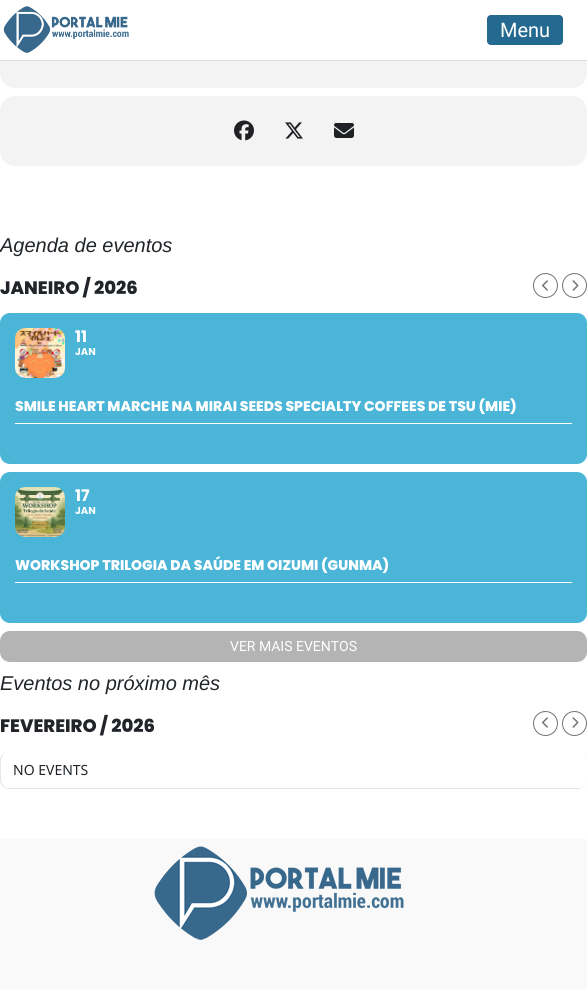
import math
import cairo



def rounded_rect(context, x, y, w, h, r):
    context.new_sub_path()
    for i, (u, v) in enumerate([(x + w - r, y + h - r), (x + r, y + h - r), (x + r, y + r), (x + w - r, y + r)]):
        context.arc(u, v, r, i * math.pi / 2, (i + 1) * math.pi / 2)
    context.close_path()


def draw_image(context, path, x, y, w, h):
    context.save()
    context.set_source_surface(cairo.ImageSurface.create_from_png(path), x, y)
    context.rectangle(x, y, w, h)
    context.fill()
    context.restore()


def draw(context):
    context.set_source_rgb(249 / 255, 249 / 255, 249 / 255)
    context.paint()
    context.set_source_rgb(1, 1, 1)
    context.rectangle(0, 73, 587, 766)
    context.fill()
    context.set_source_rgb(243 / 255, 243 / 255, 243 / 255)
    rounded_rect(context, 0, -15, 587, 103, 15)
    context.fill()
    context.set_source_rgb(1, 1, 1)
    context.rectangle(0, 0, 587, 60)
    context.fill()
    context.set_source_rgb(221 / 255, 221 / 255, 221 / 255)
    context.rectangle(0, 60, 587, 1)
    context.fill()
    draw_image(context, "images/1.png", 3, 6, 126, 47)
    context.set_source_rgb(36 / 255, 106 / 255, 144 / 255)
    rounded_rect(context, 487.5, 15.5, 75, 29, 3.5)
    context.fill_preserve()
    context.set_line_width(1)
    context.stroke()
    context.set_source_rgb(243 / 255, 243 / 255, 243 / 255)
    rounded_rect(context, 0, 96, 587, 70, 15)
    context.fill()
    draw_image(context, "images/2.png", 234, 120, 20, 21)
    draw_image(context, "images/3.png", 285, 122, 18, 17)
    draw_image(context, "images/4.png", 334, 123, 20, 15)
    context.arc(545.5, 285.5, 12, 0, 2 * math.pi)
    context.set_source_rgb(115 / 255, 115 / 255, 115 / 255)
    context.stroke()
    draw_image(context, "images/5.png", 542, 280, 6, 11)
    context.arc(574.5, 285.5, 12, 0, 2 * math.pi)
    context.stroke()
    draw_image(context, "images/6.png", 572, 280, 7, 11)
    context.set_source_rgb(75 / 255, 181 / 255, 216 / 255)
    rounded_rect(context, 0, 313, 587, 151, 10)
    context.fill()
    draw_image(context, "images/7.png", 15, 328, 50, 50)
    context.set_source_rgb(1, 1, 1)
    context.rectangle(15, 423, 557, 1)
    context.fill()
    context.set_source_rgb(75 / 255, 181 / 255, 216 / 255)
    rounded_rect(context, 0, 472, 587, 151, 10)
    context.fill()
    draw_image(context, "images/8.png", 15, 487, 50, 50)
    context.set_source_rgb(1, 1, 1)
    context.rectangle(15, 582, 557, 1)
    context.fill()
    context.set_source_rgb(180 / 255, 180 / 255, 180 / 255)
    rounded_rect(context, 0, 631, 587, 31, 10)
    context.fill()
    context.arc(545.5, 723.5, 12, 0, 2 * math.pi)
    context.set_source_rgb(115 / 255, 115 / 255, 115 / 255)
    context.stroke()
    draw_image(context, "images/5.png", 542, 717, 6, 11)
    context.arc(574.5, 723.5, 12, 0, 2 * math.pi)
    context.stroke()
    draw_image(context, "images/6.png", 572, 717, 7, 11)
    context.set_source_rgb(229 / 255, 229 / 255, 229 / 255)
    context.set_fill_rule(cairo.FillRule.EVEN_ODD)
    context.new_path()
    context.move_to(581, 752)
    context.line_to(577, 751)
    context.close_path()
    context.move_to(587, 761)
    context.curve_to(587, 757, 585, 753, 581, 752)
    context.curve_to(585, 753, 586, 757, 587, 761)
    context.close_path()
    context.move_to(10, 751)
    context.curve_to(4, 751, 0, 755, 0, 761)
    context.line_to(0, 779)
    context.curve_to(0, 785, 4, 789, 10, 789)
    context.line_to(577, 789)
    context.curve_to(583, 789, 587, 785, 587, 779)
    context.line_to(587, 776)
    context.curve_to(587, 779, 587, 784, 584, 786)
    context.curve_to(582, 788, 579, 788, 577, 788)
    context.line_to(8, 788)
    context.curve_to(2, 788, 1, 779, 1, 775)
    context.curve_to(1, 766, -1, 751, 10, 751)
    context.close_path()
    context.fill()
    context.set_source_rgb(1, 1, 1)
    context.set_fill_rule(cairo.FillRule.WINDING)
    context.new_path()
    context.move_to(10, 751)
    context.curve_to(0, 751, 1, 763, 1, 770)
    context.curve_to(1, 777, 0, 786, 8, 788)
    context.line_to(577, 788)
    context.curve_to(585, 788, 587, 783, 587, 776)
    context.curve_to(587, 768, 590, 751, 577, 751)
    context.close_path()
    context.fill()
    draw_image(context, "images/9.png", 154, 846, 250, 94)
    context.select_font_face("Roboto")
    context.set_font_size(20)
    context.move_to(500, 37)
    context.show_text("Menu")
    context.select_font_face("Liberation Sans", cairo.FontSlant.ITALIC)
    context.set_source_rgb(33 / 255, 37 / 255, 41 / 255)
    context.move_to(0, 252)
    context.show_text("Agenda de eventos")
    context.select_font_face("Poppins ExtraBold")
    context.set_font_size(18)
    context.move_to(0, 294)
    context.show_text("JANEIRO / 2026")
    context.select_font_face("Poppins", cairo.FontSlant.NORMAL, cairo.FontWeight.BOLD)
    context.set_font_size(16)
    context.set_source_rgb(1, 1, 1)
    context.move_to(75, 342)
    context.show_text("11")
    context.set_font_size(10)
    context.move_to(75, 355)
    context.show_text("JAN")
    context.select_font_face("Poppins ExtraBold")
    context.set_font_size(14)
    context.move_to(15, 411)
    context.show_text("SMILE HEART MARCHE NA MIRAI SEEDS SPECIALTY COFFEES DE TSU (MIE)")
    context.select_font_face("Poppins", cairo.FontSlant.NORMAL, cairo.FontWeight.BOLD)
    context.set_font_size(16)
    context.move_to(75, 501)
    context.show_text("17")
    context.set_font_size(10)
    context.move_to(75, 514)
    context.show_text("JAN")
    context.select_font_face("Poppins ExtraBold")
    context.set_font_size(14)
    context.move_to(15, 570)
    context.show_text("WORKSHOP TRILOGIA DA SAÚDE EM OIZUMI (GUNMA)")
    context.select_font_face("Roboto")
    context.move_to(230, 651)
    context.show_text("VER MAIS EVENTOS")
    context.select_font_face("Liberation Sans", cairo.FontSlant.ITALIC)
    context.set_font_size(20)
    context.set_source_rgb(33 / 255, 37 / 255, 41 / 255)
    context.move_to(0, 690)
    context.show_text("Eventos no próximo mês")
    context.select_font_face("Poppins ExtraBold")
    context.set_font_size(18)
    context.move_to(0, 732)
    context.show_text("FEVEREIRO / 2026")
    context.select_font_face("Noto Sans")
    context.set_font_size(14)
    context.move_to(13, 775)
    context.show_text("NO EVENTS")


surface = cairo.ImageSurface(cairo.Format.RGB24, 587, 989)
context = cairo.Context(surface)
options = cairo.FontOptions()
options.set_hint_metrics(cairo.HintMetrics.OFF)
options.set_hint_style(cairo.HintStyle.NONE)
context.set_font_options(options)
context.set_miter_limit(4)
draw(context)
surface.write_to_png("out.png")
